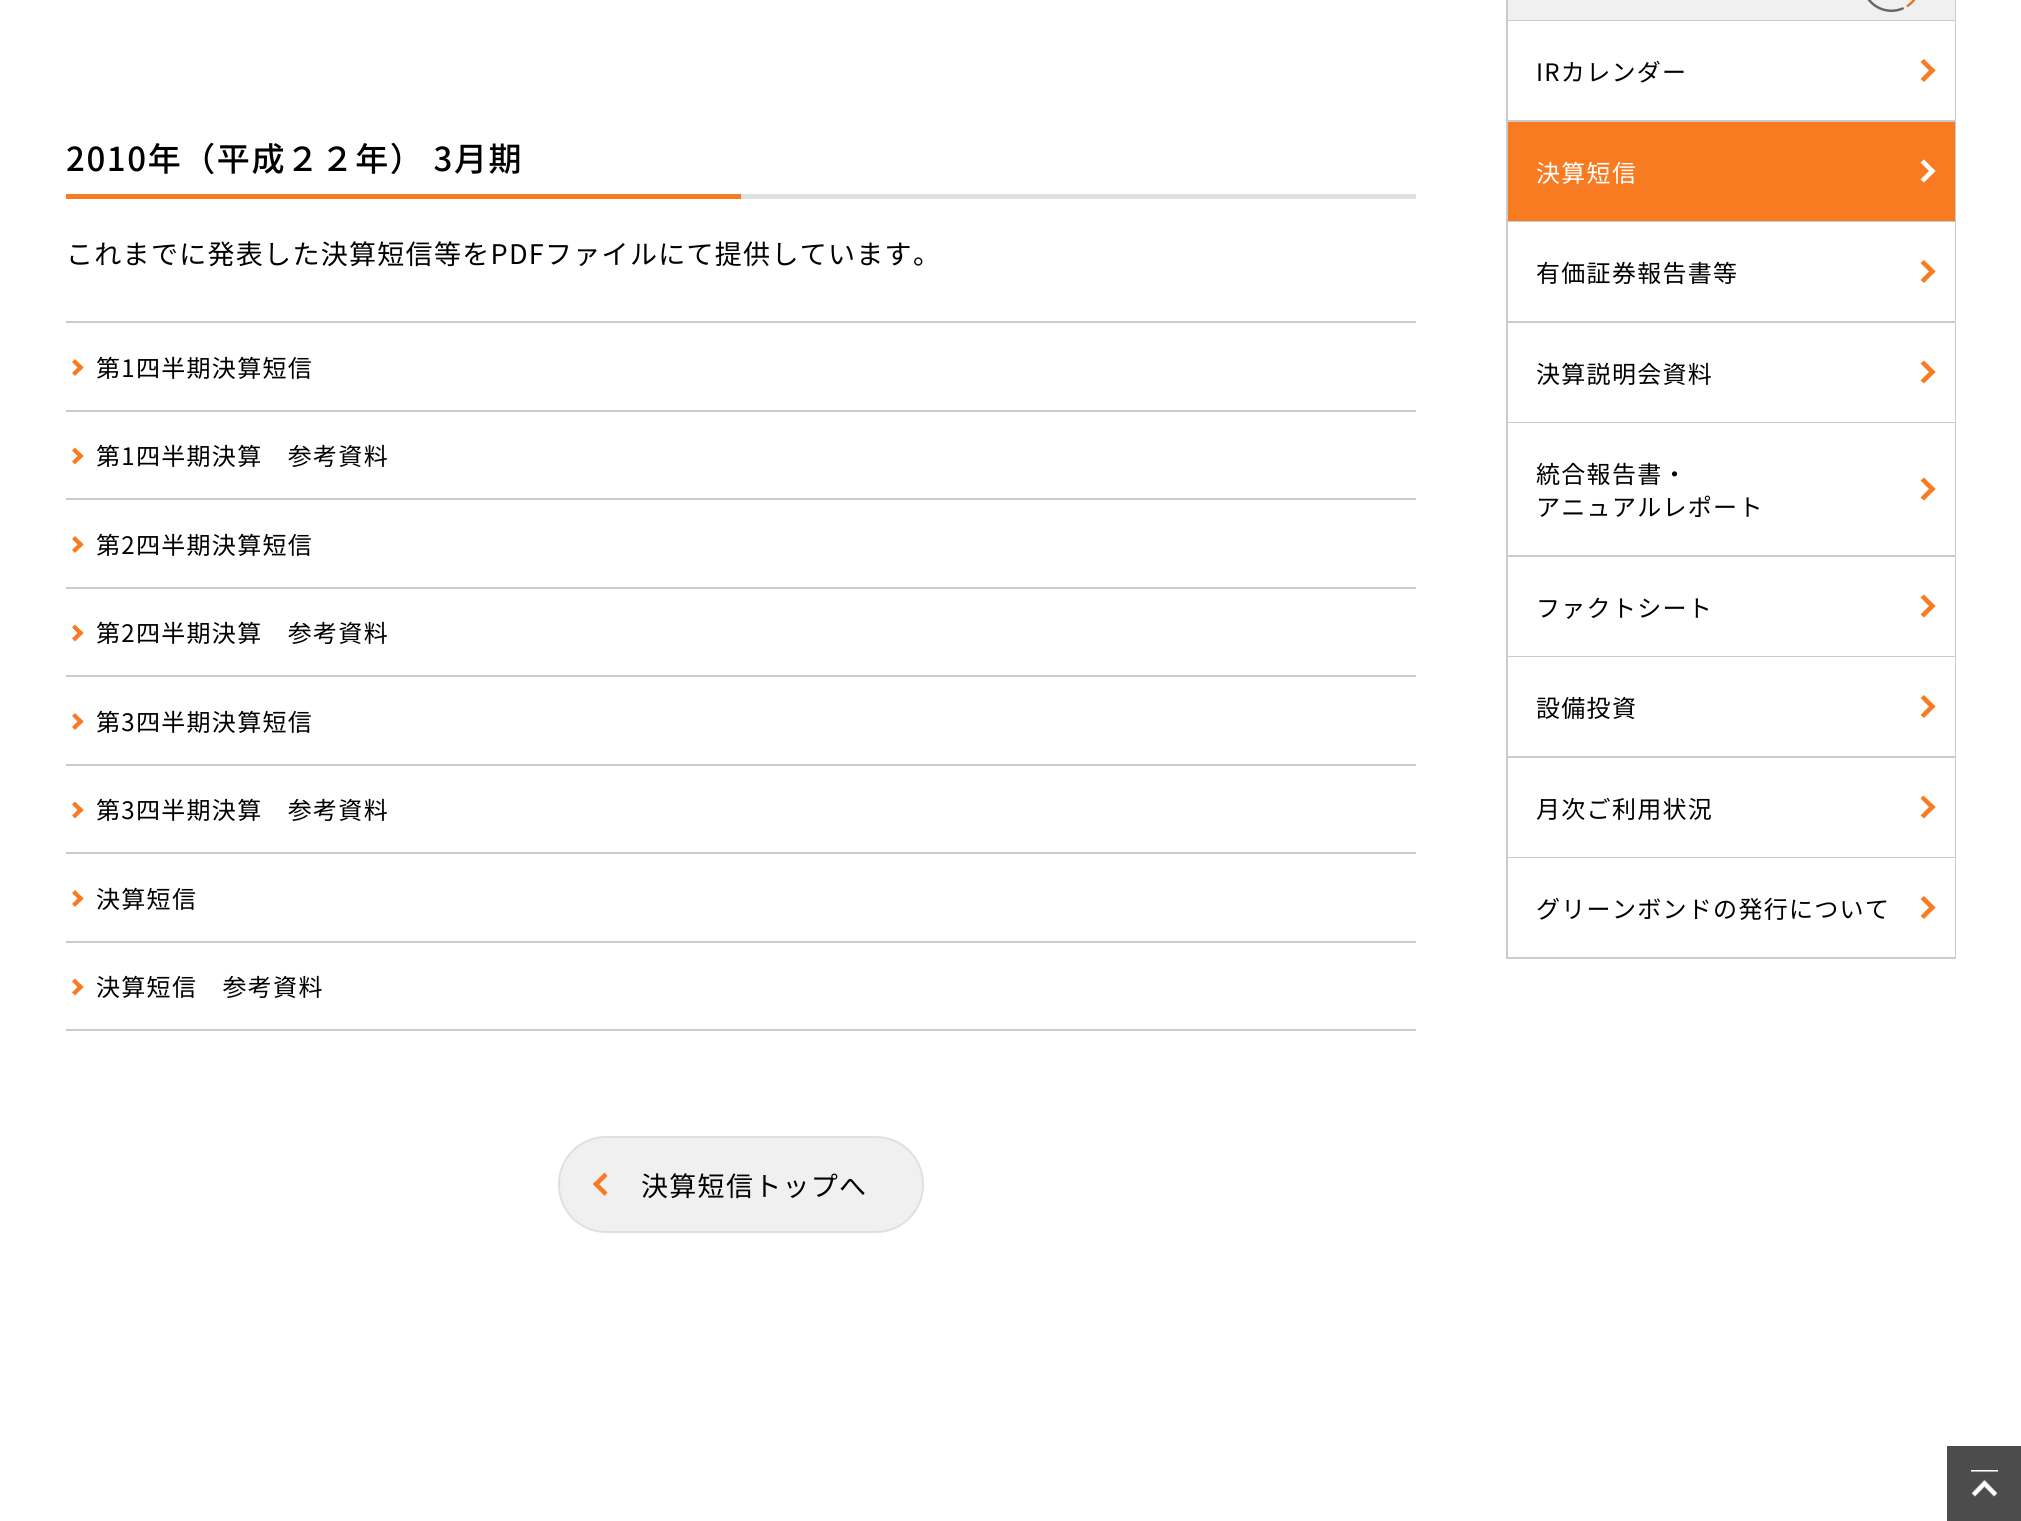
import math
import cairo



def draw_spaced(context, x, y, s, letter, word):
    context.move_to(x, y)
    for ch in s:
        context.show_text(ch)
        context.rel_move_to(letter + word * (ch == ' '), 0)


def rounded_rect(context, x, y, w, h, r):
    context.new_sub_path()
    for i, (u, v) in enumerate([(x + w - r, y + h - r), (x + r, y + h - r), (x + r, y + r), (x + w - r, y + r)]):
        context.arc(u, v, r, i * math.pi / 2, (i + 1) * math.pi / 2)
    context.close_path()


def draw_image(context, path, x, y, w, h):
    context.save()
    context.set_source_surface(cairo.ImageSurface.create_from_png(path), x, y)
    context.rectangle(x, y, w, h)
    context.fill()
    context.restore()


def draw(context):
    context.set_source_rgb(1, 1, 1)
    context.paint()
    context.set_source_rgb(248 / 255, 123 / 255, 34 / 255)
    context.rectangle(66, 194, 675, 5)
    context.fill()
    context.set_source_rgb(224 / 255, 224 / 255, 224 / 255)
    context.rectangle(741, 194, 675, 5)
    context.fill()
    context.set_source_rgb(203 / 255, 203 / 255, 203 / 255)
    context.rectangle(66, 321, 1350, 2)
    context.fill()
    context.rectangle(66, 410, 1350, 2)
    context.fill()
    context.set_source_rgb(248 / 255, 123 / 255, 34 / 255)
    context.new_path()
    context.move_to(75, 359)
    context.line_to(83.5, 367.5)
    context.line_to(80.5, 370.5)
    context.line_to(72, 362)
    context.close_path()
    context.fill()
    context.new_path()
    context.move_to(80.5, 364.5)
    context.line_to(83.5, 367.5)
    context.line_to(75, 376)
    context.line_to(72, 373)
    context.close_path()
    context.fill()
    context.set_source_rgb(203 / 255, 203 / 255, 203 / 255)
    context.rectangle(66, 498, 1350, 2)
    context.fill()
    context.set_source_rgb(248 / 255, 123 / 255, 34 / 255)
    context.new_path()
    context.move_to(75, 447.5)
    context.line_to(83.5, 456)
    context.line_to(80.5, 459)
    context.line_to(72, 450.5)
    context.close_path()
    context.fill()
    context.new_path()
    context.move_to(80.5, 453)
    context.line_to(83.5, 456)
    context.line_to(75, 464.5)
    context.line_to(72, 461.5)
    context.close_path()
    context.fill()
    context.set_source_rgb(203 / 255, 203 / 255, 203 / 255)
    context.rectangle(66, 587, 1350, 2)
    context.fill()
    context.set_source_rgb(248 / 255, 123 / 255, 34 / 255)
    context.new_path()
    context.move_to(75, 536)
    context.line_to(83.5, 544.5)
    context.line_to(80.5, 547.5)
    context.line_to(72, 539)
    context.close_path()
    context.fill()
    context.new_path()
    context.move_to(80.5, 541.5)
    context.line_to(83.5, 544.5)
    context.line_to(75, 553)
    context.line_to(72, 550)
    context.close_path()
    context.fill()
    context.set_source_rgb(203 / 255, 203 / 255, 203 / 255)
    context.rectangle(66, 675, 1350, 2)
    context.fill()
    context.set_source_rgb(248 / 255, 123 / 255, 34 / 255)
    context.new_path()
    context.move_to(75, 624.5)
    context.line_to(83.5, 633)
    context.line_to(80.5, 636)
    context.line_to(72, 627.5)
    context.close_path()
    context.fill()
    context.new_path()
    context.move_to(80.5, 630)
    context.line_to(83.5, 633)
    context.line_to(75, 641.5)
    context.line_to(72, 638.5)
    context.close_path()
    context.fill()
    context.set_source_rgb(203 / 255, 203 / 255, 203 / 255)
    context.rectangle(66, 764, 1350, 2)
    context.fill()
    context.set_source_rgb(248 / 255, 123 / 255, 34 / 255)
    context.new_path()
    context.move_to(75, 713)
    context.line_to(83.5, 721.5)
    context.line_to(80.5, 724.5)
    context.line_to(72, 716)
    context.close_path()
    context.fill()
    context.new_path()
    context.move_to(80.5, 718.5)
    context.line_to(83.5, 721.5)
    context.line_to(75, 730)
    context.line_to(72, 727)
    context.close_path()
    context.fill()
    context.set_source_rgb(203 / 255, 203 / 255, 203 / 255)
    context.rectangle(66, 852, 1350, 2)
    context.fill()
    context.set_source_rgb(248 / 255, 123 / 255, 34 / 255)
    context.new_path()
    context.move_to(75, 801.5)
    context.line_to(83.5, 810)
    context.line_to(80.5, 813)
    context.line_to(72, 804.5)
    context.close_path()
    context.fill()
    context.new_path()
    context.move_to(80.5, 807)
    context.line_to(83.5, 810)
    context.line_to(75, 818.5)
    context.line_to(72, 815.5)
    context.close_path()
    context.fill()
    context.set_source_rgb(203 / 255, 203 / 255, 203 / 255)
    context.rectangle(66, 941, 1350, 2)
    context.fill()
    context.set_source_rgb(248 / 255, 123 / 255, 34 / 255)
    context.new_path()
    context.move_to(75, 890)
    context.line_to(83.5, 898.5)
    context.line_to(80.5, 901.5)
    context.line_to(72, 893)
    context.close_path()
    context.fill()
    context.new_path()
    context.move_to(80.5, 895.5)
    context.line_to(83.5, 898.5)
    context.line_to(75, 907)
    context.line_to(72, 904)
    context.close_path()
    context.fill()
    context.set_source_rgb(203 / 255, 203 / 255, 203 / 255)
    context.rectangle(66, 1029, 1350, 2)
    context.fill()
    context.set_source_rgb(248 / 255, 123 / 255, 34 / 255)
    context.new_path()
    context.move_to(75, 978.5)
    context.line_to(83.5, 987)
    context.line_to(80.5, 990)
    context.line_to(72, 981.5)
    context.close_path()
    context.fill()
    context.new_path()
    context.move_to(80.5, 984)
    context.line_to(83.5, 987)
    context.line_to(75, 995.5)
    context.line_to(72, 992.5)
    context.close_path()
    context.fill()
    context.set_source_rgb(240 / 255, 240 / 255, 240 / 255)
    rounded_rect(context, 559, 1137, 364, 95, 47)
    context.fill_preserve()
    context.set_source_rgb(224 / 255, 224 / 255, 224 / 255)
    context.stroke()
    context.set_source_rgb(248 / 255, 123 / 255, 34 / 255)
    context.new_path()
    context.move_to(604.5, 1196)
    context.line_to(593, 1184)
    context.line_to(596, 1181)
    context.line_to(607.5, 1192.5)
    context.close_path()
    context.fill()
    context.new_path()
    context.move_to(596, 1187.5)
    context.line_to(593, 1184)
    context.line_to(604.5, 1172.5)
    context.line_to(607.5, 1176)
    context.close_path()
    context.fill()
    context.rectangle(1507, -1, 448, 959)
    context.set_source_rgb(203 / 255, 203 / 255, 203 / 255)
    context.stroke()
    context.set_source_rgb(240 / 255, 240 / 255, 240 / 255)
    context.rectangle(1508, 0, 447, 20)
    context.fill()
    context.set_source_rgb(203 / 255, 203 / 255, 203 / 255)
    context.rectangle(1508, 20, 447, 1)
    context.fill()
    draw_image(context, "images/1.png", 1867, 0, 49, 12)
    context.rectangle(1508, 120, 447, 2)
    context.fill()
    context.set_source_rgb(1, 1, 1)
    context.rectangle(1954, 21, 1, 99)
    context.fill()
    context.set_source_rgb(248 / 255, 123 / 255, 34 / 255)
    context.new_path()
    context.move_to(1924, 59)
    context.line_to(1935.5, 70.5)
    context.line_to(1932, 73.5)
    context.line_to(1920.5, 62)
    context.close_path()
    context.fill()
    context.new_path()
    context.move_to(1932, 67.5)
    context.line_to(1935.5, 70.5)
    context.line_to(1924, 82)
    context.line_to(1920.5, 79)
    context.close_path()
    context.fill()
    context.set_source_rgb(203 / 255, 203 / 255, 203 / 255)
    context.rectangle(1508, 221, 447, 1)
    context.fill()
    context.set_source_rgb(248 / 255, 123 / 255, 34 / 255)
    context.rectangle(1508, 122, 447, 99)
    context.fill()
    context.set_source_rgb(1, 1, 1)
    context.new_path()
    context.move_to(1924, 159.5)
    context.line_to(1935.5, 171)
    context.line_to(1932, 174)
    context.line_to(1920.5, 162.5)
    context.close_path()
    context.fill()
    context.new_path()
    context.move_to(1932, 168)
    context.line_to(1935.5, 171)
    context.line_to(1924, 182.5)
    context.line_to(1920.5, 179.5)
    context.close_path()
    context.fill()
    context.set_source_rgb(203 / 255, 203 / 255, 203 / 255)
    context.rectangle(1508, 321, 447, 2)
    context.fill()
    context.set_source_rgb(1, 1, 1)
    context.rectangle(1954, 222, 1, 99)
    context.fill()
    context.set_source_rgb(248 / 255, 123 / 255, 34 / 255)
    context.new_path()
    context.move_to(1924, 260)
    context.line_to(1935.5, 271.5)
    context.line_to(1932, 274.5)
    context.line_to(1920.5, 263)
    context.close_path()
    context.fill()
    context.new_path()
    context.move_to(1932, 268.5)
    context.line_to(1935.5, 271.5)
    context.line_to(1924, 283)
    context.line_to(1920.5, 280)
    context.close_path()
    context.fill()
    context.set_source_rgb(203 / 255, 203 / 255, 203 / 255)
    context.rectangle(1508, 422, 447, 1)
    context.fill()
    context.set_source_rgb(1, 1, 1)
    context.rectangle(1954, 323, 1, 99)
    context.fill()
    context.set_source_rgb(248 / 255, 123 / 255, 34 / 255)
    context.new_path()
    context.move_to(1924, 360.5)
    context.line_to(1935.5, 372)
    context.line_to(1932, 375)
    context.line_to(1920.5, 363.5)
    context.close_path()
    context.fill()
    context.new_path()
    context.move_to(1932, 369)
    context.line_to(1935.5, 372)
    context.line_to(1924, 383.5)
    context.line_to(1920.5, 380.5)
    context.close_path()
    context.fill()
    context.set_source_rgb(203 / 255, 203 / 255, 203 / 255)
    context.rectangle(1508, 555, 447, 2)
    context.fill()
    context.set_source_rgb(1, 1, 1)
    context.rectangle(1954, 423, 1, 132)
    context.fill()
    context.set_source_rgb(248 / 255, 123 / 255, 34 / 255)
    context.new_path()
    context.move_to(1924, 477.5)
    context.line_to(1935.5, 489)
    context.line_to(1932, 492)
    context.line_to(1920.5, 480.5)
    context.close_path()
    context.fill()
    context.new_path()
    context.move_to(1932, 486)
    context.line_to(1935.5, 489)
    context.line_to(1924, 500.5)
    context.line_to(1920.5, 497.5)
    context.close_path()
    context.fill()
    context.set_source_rgb(203 / 255, 203 / 255, 203 / 255)
    context.rectangle(1508, 656, 447, 1)
    context.fill()
    context.set_source_rgb(1, 1, 1)
    context.rectangle(1954, 557, 1, 99)
    context.fill()
    context.set_source_rgb(248 / 255, 123 / 255, 34 / 255)
    context.new_path()
    context.move_to(1924, 594.5)
    context.line_to(1935.5, 606)
    context.line_to(1932, 609)
    context.line_to(1920.5, 597.5)
    context.close_path()
    context.fill()
    context.new_path()
    context.move_to(1932, 603)
    context.line_to(1935.5, 606)
    context.line_to(1924, 617.5)
    context.line_to(1920.5, 614.5)
    context.close_path()
    context.fill()
    context.set_source_rgb(203 / 255, 203 / 255, 203 / 255)
    context.rectangle(1508, 756, 447, 2)
    context.fill()
    context.set_source_rgb(1, 1, 1)
    context.rectangle(1954, 657, 1, 99)
    context.fill()
    context.set_source_rgb(248 / 255, 123 / 255, 34 / 255)
    context.new_path()
    context.move_to(1924, 695)
    context.line_to(1935.5, 706.5)
    context.line_to(1932, 709.5)
    context.line_to(1920.5, 698)
    context.close_path()
    context.fill()
    context.new_path()
    context.move_to(1932, 703.5)
    context.line_to(1935.5, 706.5)
    context.line_to(1924, 718)
    context.line_to(1920.5, 715)
    context.close_path()
    context.fill()
    context.set_source_rgb(203 / 255, 203 / 255, 203 / 255)
    context.rectangle(1508, 857, 447, 1)
    context.fill()
    context.set_source_rgb(1, 1, 1)
    context.rectangle(1954, 758, 1, 99)
    context.fill()
    context.set_source_rgb(248 / 255, 123 / 255, 34 / 255)
    context.new_path()
    context.move_to(1923.5, 795.5)
    context.line_to(1935.5, 807)
    context.line_to(1932, 810)
    context.line_to(1920.5, 798.5)
    context.close_path()
    context.fill()
    context.new_path()
    context.move_to(1932, 804)
    context.line_to(1935.5, 807)
    context.line_to(1924, 818.5)
    context.line_to(1920.5, 815.5)
    context.close_path()
    context.fill()
    context.set_source_rgb(1, 1, 1)
    context.rectangle(1954, 858, 1, 99)
    context.fill()
    context.set_source_rgb(248 / 255, 123 / 255, 34 / 255)
    context.new_path()
    context.move_to(1924, 896)
    context.line_to(1935.5, 907.5)
    context.line_to(1932, 910.5)
    context.line_to(1920.5, 899)
    context.close_path()
    context.fill()
    context.new_path()
    context.move_to(1932, 904.5)
    context.line_to(1935.5, 907.5)
    context.line_to(1924, 919)
    context.line_to(1920.5, 916)
    context.close_path()
    context.fill()
    context.set_source_rgb(76 / 255, 76 / 255, 76 / 255)
    context.rectangle(1947, 1446, 74, 75)
    context.fill()
    draw_image(context, "images/2.png", 1971, 1470, 27, 27)
    context.select_font_face("Noto Sans JP Medium")
    context.set_font_size(33)
    context.set_source_rgb(0, 0, 0)
    draw_spaced(context, 66, 171, "2010年（平成２２年） 3月期", 1.6, 0)
    context.select_font_face("Noto Sans JP")
    context.set_font_size(27)
    draw_spaced(context, 66, 264, "これまでに発表した決算短信等をPDFファイルにて提供しています。", 1.3, 0)
    context.set_font_size(24)
    draw_spaced(context, 96, 377, "第1四半期決算短信", 1.3, 0)
    draw_spaced(context, 96, 465, "第1四半期決算　参考資料", 1.3, 0)
    draw_spaced(context, 96, 554, "第2四半期決算短信", 1.3, 0)
    draw_spaced(context, 96, 642, "第2四半期決算　参考資料", 1.3, 0)
    draw_spaced(context, 96, 731, "第3四半期決算短信", 1.3, 0)
    draw_spaced(context, 96, 819, "第3四半期決算　参考資料", 1.3, 0)
    draw_spaced(context, 96, 908, "決算短信", 1.3, 0)
    draw_spaced(context, 96, 996, "決算短信　参考資料", 1.3, 0)
    context.set_font_size(27)
    draw_spaced(context, 641, 1196, "決算短信トップへ", 1.3, 0)
    context.set_font_size(24)
    draw_spaced(context, 1536, 81, "IRカレンダー", 1.3, 0)
    context.set_source_rgb(1, 1, 1)
    draw_spaced(context, 1536, 182, "決算短信", 1.3, 0)
    context.set_source_rgb(0, 0, 0)
    draw_spaced(context, 1536, 282, "有価証券報告書等", 1.3, 0)
    draw_spaced(context, 1536, 383, "決算説明会資料", 1.3, 0)
    draw_spaced(context, 1536, 483, "統合報告書・", 1.3, 0)
    draw_spaced(context, 1536, 516, "アニュアルレポート", 1.3, 0)
    draw_spaced(context, 1536, 617, "ファクトシート", 1.3, 0)
    draw_spaced(context, 1536, 717, "設備投資", 1.3, 0)
    draw_spaced(context, 1536, 818, "月次ご利用状況", 1.3, 0)
    draw_spaced(context, 1536, 918, "グリーンボンドの発行について", 1.3, 0)


surface = cairo.ImageSurface(cairo.Format.RGB24, 2021, 1521)
context = cairo.Context(surface)
options = cairo.FontOptions()
options.set_hint_metrics(cairo.HintMetrics.OFF)
options.set_hint_style(cairo.HintStyle.NONE)
context.set_font_options(options)
context.set_miter_limit(4)
draw(context)
surface.write_to_png("out.png")
